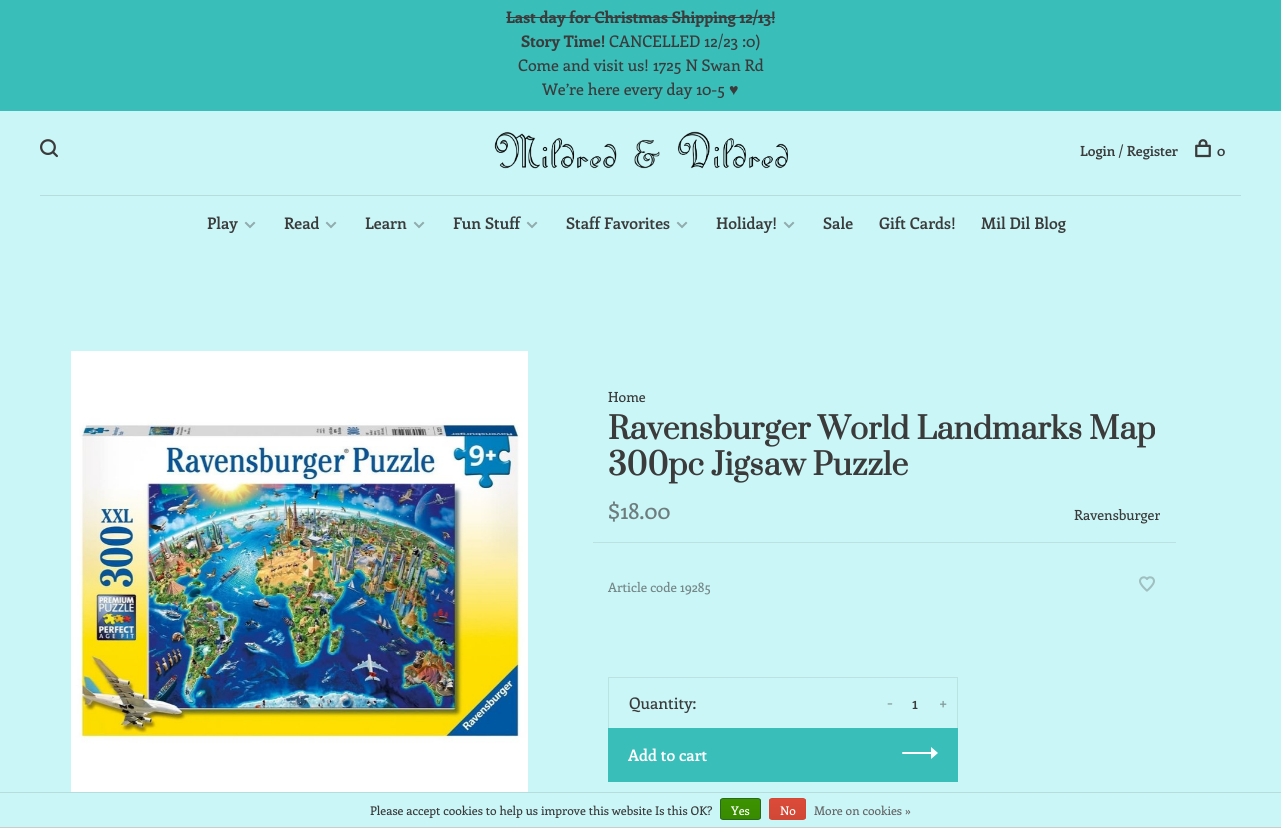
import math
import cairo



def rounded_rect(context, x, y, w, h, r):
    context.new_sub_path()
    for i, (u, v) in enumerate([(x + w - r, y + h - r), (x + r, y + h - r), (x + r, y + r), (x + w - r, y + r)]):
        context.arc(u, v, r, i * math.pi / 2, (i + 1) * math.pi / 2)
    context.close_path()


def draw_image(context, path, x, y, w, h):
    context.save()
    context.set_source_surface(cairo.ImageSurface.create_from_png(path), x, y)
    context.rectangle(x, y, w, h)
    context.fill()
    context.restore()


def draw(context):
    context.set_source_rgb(202 / 255, 246 / 255, 247 / 255)
    context.paint()
    context.set_source_rgb(57 / 255, 190 / 255, 186 / 255)
    context.rectangle(0, 0, 1281, 111)
    context.fill()
    context.set_source_rgb(59 / 255, 59 / 255, 59 / 255)
    context.rectangle(506, 17, 269, 1)
    context.fill()
    draw_image(context, "images/1.png", 40, 139, 18, 19)
    draw_image(context, "images/2.png", 494, 131, 294, 38)
    draw_image(context, "images/3.png", 1195, 139, 16, 19)
    context.set_source_rgb(182 / 255, 221 / 255, 222 / 255)
    context.rectangle(40, 195, 1201, 1)
    context.fill()
    draw_image(context, "images/4.png", 244, 221, 12, 8)
    draw_image(context, "images/4.png", 325, 221, 12, 8)
    draw_image(context, "images/4.png", 413, 221, 12, 8)
    draw_image(context, "images/4.png", 526, 221, 12, 8)
    draw_image(context, "images/4.png", 676, 221, 12, 8)
    draw_image(context, "images/4.png", 783, 221, 12, 8)
    draw_image(context, "images/5.png", 71, 351, 457, 441)
    context.set_source_rgb(186 / 255, 226 / 255, 227 / 255)
    context.rectangle(593, 542, 583, 1)
    context.fill()
    draw_image(context, "images/6.png", 1139, 576, 16, 16)
    context.new_path()
    context.move_to(608, 677)
    context.line_to(958, 677)
    context.line_to(957, 678)
    context.line_to(609, 678)
    context.close_path()
    context.fill()
    context.set_source_rgba(0, 0, 0, 0.08)
    context.new_path()
    context.move_to(958, 677)
    context.line_to(958, 728)
    context.line_to(957, 728)
    context.line_to(957, 678)
    context.close_path()
    context.fill()
    context.new_path()
    context.move_to(608, 728)
    context.line_to(608, 677)
    context.line_to(609, 678)
    context.line_to(609, 728)
    context.close_path()
    context.fill()
    context.set_source_rgb(57 / 255, 190 / 255, 186 / 255)
    context.rectangle(608, 728, 350, 54)
    context.fill()
    context.set_source_rgb(1, 1, 1)
    context.new_path()
    context.move_to(931, 752)
    context.line_to(903, 752)
    context.curve_to(902, 752, 902, 753, 902, 753.5)
    context.line_to(903, 754)
    context.line_to(931, 754)
    context.line_to(931, 759)
    context.line_to(938, 753)
    context.line_to(931, 747)
    context.close_path()
    context.fill()
    context.set_source_rgb(182 / 255, 221 / 255, 222 / 255)
    context.rectangle(0, 792, 1281, 1)
    context.fill()
    context.set_source_rgb(204 / 255, 204 / 255, 204 / 255)
    context.rectangle(0, 827, 1281, 1)
    context.fill()
    context.save()
    rounded_rect(context, 720, 798, 41, 22, 3)
    context.clip()
    gradient = cairo.LinearGradient(741, 799, 741, 819)
    gradient.add_color_stop_rgba(0, 60 / 255, 147 / 255, 0, 1)
    gradient.add_color_stop_rgba(1, 57 / 255, 138 / 255, 0, 1)
    context.set_source(gradient)
    context.rectangle(720, 799, 41, 20)
    context.fill()
    context.restore()
    rounded_rect(context, 720.5, 798.5, 40, 21, 2.5)
    context.set_source_rgb(41 / 255, 105 / 255, 29 / 255)
    context.set_line_width(1)
    context.stroke()
    context.save()
    rounded_rect(context, 769, 798, 37, 22, 3)
    context.clip()
    gradient = cairo.LinearGradient(788, 799, 788, 819)
    gradient.add_color_stop_rgba(0, 220 / 255, 74 / 255, 56 / 255, 1)
    gradient.add_color_stop_rgba(1, 209 / 255, 72 / 255, 54 / 255, 1)
    context.set_source(gradient)
    context.rectangle(769, 799, 37, 20)
    context.fill()
    context.restore()
    rounded_rect(context, 769.5, 798.5, 36, 21, 2.5)
    context.set_source_rgb(209 / 255, 72 / 255, 54 / 255)
    context.stroke()
    context.select_font_face("Enriqueta", cairo.FontSlant.NORMAL, cairo.FontWeight.BOLD)
    context.set_font_size(16)
    context.set_source_rgb(59 / 255, 59 / 255, 59 / 255)
    context.move_to(506, 23)
    context.show_text("Last day for Christmas Shipping 12/13!")
    context.move_to(521, 47)
    context.show_text("Story Time!")
    context.select_font_face("Enriqueta Medium")
    context.move_to(609, 47)
    context.show_text("CANCELLED 12/23 :0)")
    context.move_to(518, 71)
    context.show_text("Come and visit us! 1725 N Swan Rd")
    context.move_to(542, 95)
    context.show_text("We’re here every day 10-5")
    context.select_font_face("Liberation Sans")
    context.move_to(729, 95)
    context.show_text("♥")
    context.select_font_face("Enriqueta SemiBold")
    context.set_font_size(14)
    context.move_to(1080, 156)
    context.show_text("Login / Register")
    context.move_to(1217, 156)
    context.show_text("0")
    context.set_font_size(16)
    context.move_to(207, 229)
    context.show_text("Play")
    context.move_to(284, 229)
    context.show_text("Read")
    context.move_to(365, 229)
    context.show_text("Learn")
    context.move_to(453, 229)
    context.show_text("Fun Stuff")
    context.move_to(566, 229)
    context.show_text("Staff Favorites")
    context.move_to(716, 229)
    context.show_text("Holiday!")
    context.move_to(823, 229)
    context.show_text("Sale")
    context.move_to(879, 229)
    context.show_text("Gift Cards!")
    context.move_to(981, 229)
    context.show_text("Mil Dil Blog")
    context.select_font_face("Enriqueta Medium")
    context.set_font_size(14)
    context.move_to(608, 402)
    context.show_text("Home")
    context.select_font_face("Prata", cairo.FontSlant.NORMAL, cairo.FontWeight.BOLD)
    context.set_font_size(30)
    context.move_to(608, 439)
    context.show_text("Ravensburger World Landmarks Map")
    context.move_to(608, 475)
    context.show_text("300pc Jigsaw Puzzle")
    context.select_font_face("Enriqueta Medium")
    context.set_font_size(22)
    context.set_source_rgb(109 / 255, 124 / 255, 125 / 255)
    context.move_to(608, 519)
    context.show_text("$18.00")
    context.set_font_size(14)
    context.set_source_rgb(59 / 255, 59 / 255, 59 / 255)
    context.move_to(1074, 520)
    context.show_text("Ravensburger")
    context.set_font_size(13)
    context.set_source_rgb(116 / 255, 134 / 255, 134 / 255)
    context.move_to(608, 592)
    context.show_text("Article code 19285")
    context.set_font_size(16)
    context.set_source_rgb(59 / 255, 59 / 255, 59 / 255)
    context.move_to(629, 709)
    context.show_text("Quantity:")
    context.set_source_rgb(131 / 255, 153 / 255, 153 / 255)
    context.move_to(887, 708)
    context.show_text("-")
    context.move_to(939, 708)
    context.show_text("+")
    context.set_source_rgb(59 / 255, 59 / 255, 59 / 255)
    context.move_to(912, 709)
    context.show_text("1")
    context.select_font_face("Enriqueta SemiBold")
    context.set_source_rgb(1, 1, 1)
    context.move_to(628, 761)
    context.show_text("Add to cart")
    context.select_font_face("Enriqueta Medium")
    context.set_font_size(12)
    context.set_source_rgb(59 / 255, 59 / 255, 59 / 255)
    context.move_to(370, 815)
    context.show_text("Please accept cookies to help us improve this website Is this OK?")
    context.set_source_rgb(1, 1, 1)
    context.move_to(731, 815)
    context.show_text("Yes")
    context.move_to(780, 815)
    context.show_text("No")
    context.set_source_rgb(102 / 255, 102 / 255, 102 / 255)
    context.move_to(814, 815)
    context.show_text("More on cookies »")


surface = cairo.ImageSurface(cairo.Format.RGB24, 1281, 828)
context = cairo.Context(surface)
options = cairo.FontOptions()
options.set_hint_metrics(cairo.HintMetrics.OFF)
options.set_hint_style(cairo.HintStyle.NONE)
context.set_font_options(options)
context.set_miter_limit(4)
draw(context)
surface.write_to_png("out.png")
